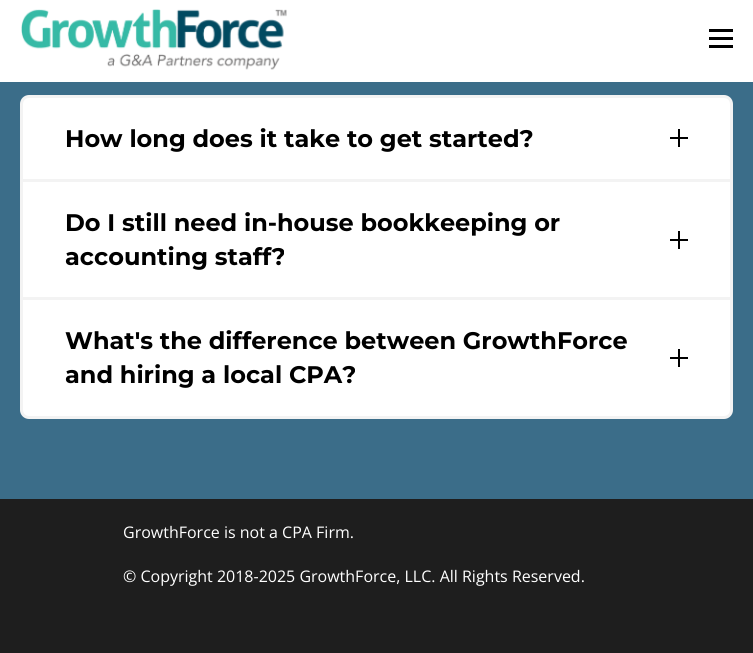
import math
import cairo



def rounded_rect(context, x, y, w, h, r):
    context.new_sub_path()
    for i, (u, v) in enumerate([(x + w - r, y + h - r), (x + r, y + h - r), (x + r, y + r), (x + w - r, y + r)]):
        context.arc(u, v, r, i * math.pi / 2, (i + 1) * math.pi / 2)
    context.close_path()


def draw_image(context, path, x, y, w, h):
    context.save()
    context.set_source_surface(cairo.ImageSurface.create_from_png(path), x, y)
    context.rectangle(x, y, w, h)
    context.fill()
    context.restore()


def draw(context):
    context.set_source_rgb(59 / 255, 109 / 255, 137 / 255)
    context.paint()
    context.set_source_rgb(1, 1, 1)
    context.rectangle(0, 0, 753, 82)
    context.fill()
    draw_image(context, "images/1.png", 21, 9, 266, 61)
    context.set_source_rgb(0, 0, 0)
    context.rectangle(709, 37, 24, 3)
    context.fill()
    context.rectangle(709, 29, 24, 3)
    context.fill()
    context.rectangle(709, 45, 24, 3)
    context.fill()
    context.set_source_rgb(1, 1, 1)
    rounded_rect(context, 21.5, 96.5, 710, 321, 7.5)
    context.fill_preserve()
    context.set_source_rgb(243 / 255, 243 / 255, 243 / 255)
    context.set_line_width(3)
    context.stroke()
    context.set_source_rgb(0, 0, 0)
    context.rectangle(670, 137, 18, 2)
    context.fill()
    context.rectangle(678, 129, 2, 18)
    context.fill()
    context.set_source_rgb(243 / 255, 243 / 255, 243 / 255)
    context.rectangle(23, 179, 707, 3)
    context.fill()
    context.set_source_rgb(0, 0, 0)
    context.rectangle(670, 239, 18, 2)
    context.fill()
    context.rectangle(678, 231, 2, 18)
    context.fill()
    context.set_source_rgb(243 / 255, 243 / 255, 243 / 255)
    context.rectangle(23, 297, 707, 3)
    context.fill()
    context.set_source_rgb(0, 0, 0)
    context.rectangle(670, 357, 18, 2)
    context.fill()
    context.rectangle(678, 349, 2, 18)
    context.fill()
    context.set_source_rgb(30 / 255, 30 / 255, 30 / 255)
    context.rectangle(0, 499, 753, 154)
    context.fill()
    context.select_font_face("Montserrat", cairo.FontSlant.NORMAL, cairo.FontWeight.BOLD)
    context.set_font_size(24)
    context.set_source_rgb(0, 0, 0)
    context.move_to(65, 147)
    context.show_text("How long does it take to get started?")
    context.move_to(65, 231)
    context.show_text("Do I still need in-house bookkeeping or")
    context.move_to(65, 265)
    context.show_text("accounting staff?")
    context.move_to(65, 349)
    context.show_text("What's the difference between GrowthForce")
    context.move_to(65, 383)
    context.show_text("and hiring a local CPA?")
    context.select_font_face("Open Sans")
    context.set_font_size(16)
    context.set_source_rgb(1, 1, 1)
    context.move_to(123, 538)
    context.show_text("GrowthForce is not a CPA Firm.")
    context.move_to(123, 582)
    context.show_text("© Copyright 2018-2025 GrowthForce, LLC. All Rights Reserved.")


surface = cairo.ImageSurface(cairo.Format.RGB24, 753, 653)
context = cairo.Context(surface)
options = cairo.FontOptions()
options.set_hint_metrics(cairo.HintMetrics.OFF)
options.set_hint_style(cairo.HintStyle.NONE)
context.set_font_options(options)
context.set_miter_limit(4)
draw(context)
surface.write_to_png("out.png")
